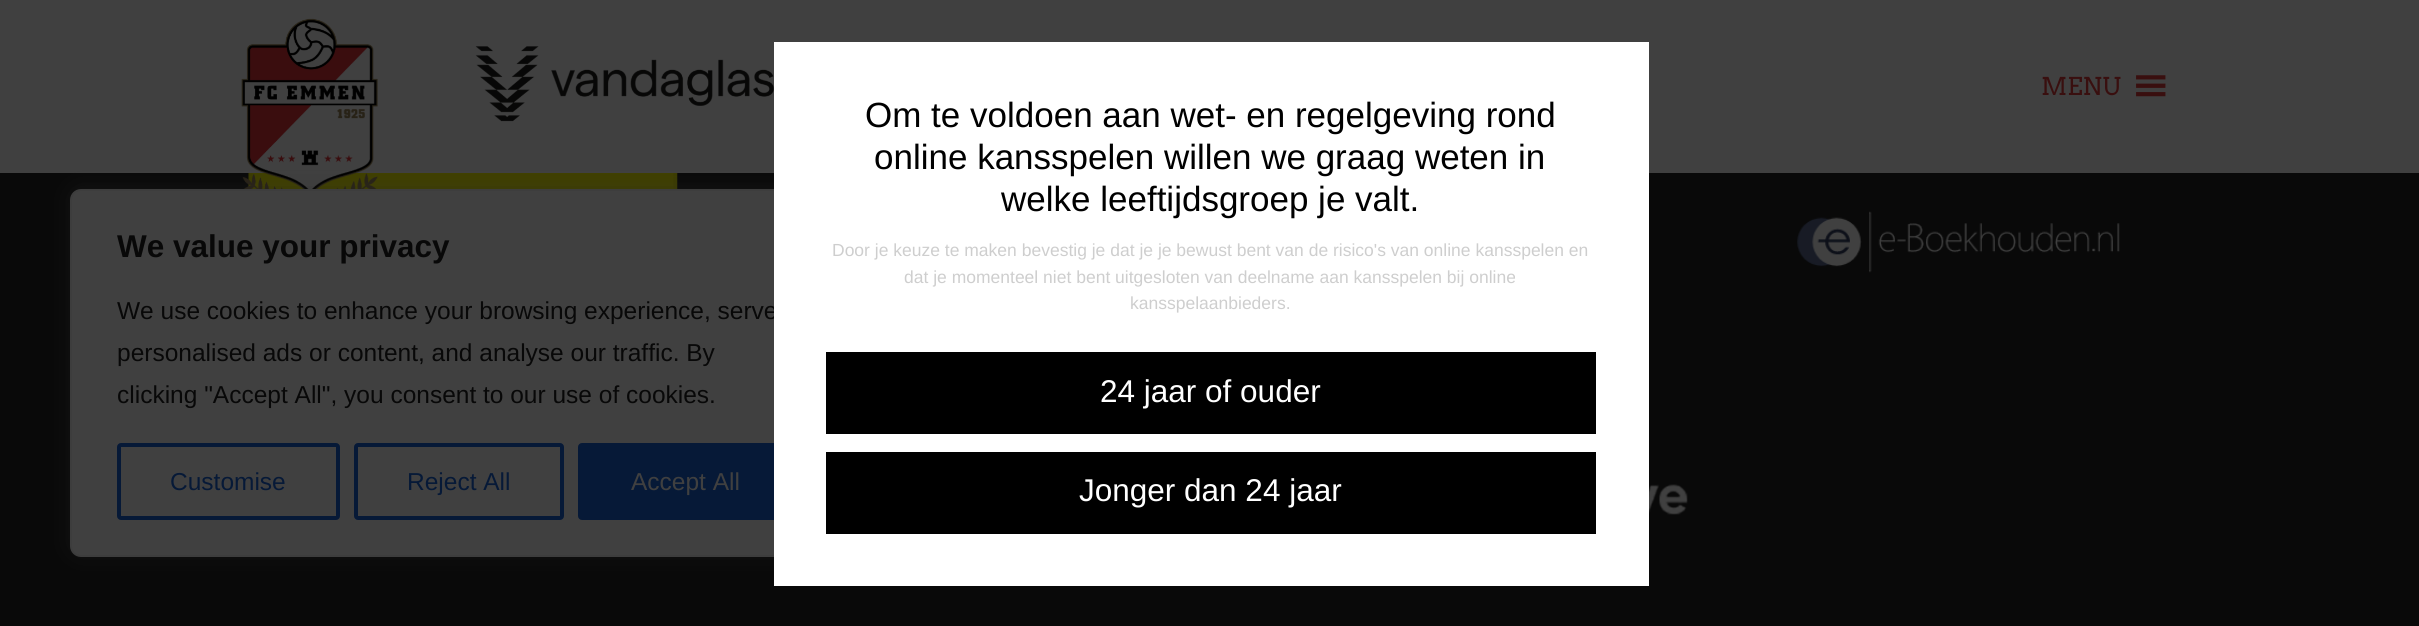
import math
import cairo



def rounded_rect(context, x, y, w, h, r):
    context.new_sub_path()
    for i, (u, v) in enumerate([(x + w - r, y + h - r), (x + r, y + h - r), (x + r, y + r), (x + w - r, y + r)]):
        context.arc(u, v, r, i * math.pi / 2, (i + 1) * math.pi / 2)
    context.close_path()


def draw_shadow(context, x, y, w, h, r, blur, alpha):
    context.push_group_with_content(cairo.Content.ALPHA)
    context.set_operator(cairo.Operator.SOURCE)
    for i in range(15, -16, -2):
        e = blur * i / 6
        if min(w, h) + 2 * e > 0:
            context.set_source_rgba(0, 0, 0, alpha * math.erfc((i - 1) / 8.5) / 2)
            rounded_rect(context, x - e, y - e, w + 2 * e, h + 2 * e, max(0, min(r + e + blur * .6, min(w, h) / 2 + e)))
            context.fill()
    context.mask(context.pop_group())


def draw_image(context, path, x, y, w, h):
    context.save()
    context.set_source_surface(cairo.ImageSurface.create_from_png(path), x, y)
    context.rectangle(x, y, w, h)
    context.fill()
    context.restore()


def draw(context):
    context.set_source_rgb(9 / 255, 9 / 255, 9 / 255)
    context.paint()
    context.set_source_rgb(64 / 255, 64 / 255, 64 / 255)
    context.rectangle(0, 0, 2419, 173)
    context.fill()
    draw_image(context, "images/4.png", 248, 173, 430, 16)
    draw_image(context, "images/1.png", 241, 18, 137, 171)
    draw_image(context, "images/2.png", 475, 46, 299, 76)
    draw_image(context, "images/3.png", 2136, 75, 30, 22)
    draw_image(context, "images/5.png", 1797, 211, 323, 62)
    draw_image(context, "images/6.png", 1649, 483, 39, 32)
    context.set_source_rgb(43 / 255, 43 / 255, 43 / 255)
    draw_shadow(context, 70, 187, 770, 368, 11, 9, 0.3)
    context.set_source_rgb(64 / 255, 64 / 255, 64 / 255)
    rounded_rect(context, 71, 190, 768, 366, 10)
    context.fill_preserve()
    context.set_source_rgb(61 / 255, 61 / 255, 61 / 255)
    context.stroke()
    rounded_rect(context, 119, 445, 219, 73, 2)
    context.set_source_rgb(6 / 255, 25 / 255, 55 / 255)
    context.set_line_width(4)
    context.stroke()
    rounded_rect(context, 356, 445, 206, 73, 2)
    context.stroke()
    rounded_rect(context, 580, 445, 211, 73, 2)
    context.fill_preserve()
    context.stroke()
    context.select_font_face("Arvo")
    context.set_font_size(24.5)
    context.set_source_rgb(57 / 255, 15 / 255, 15 / 255)
    context.move_to(2041, 95)
    context.show_text("MENU")
    context.select_font_face("Liberation Sans", cairo.FontSlant.NORMAL, cairo.FontWeight.BOLD)
    context.set_font_size(31.5)
    context.set_source_rgb(8 / 255, 8 / 255, 8 / 255)
    context.move_to(117, 257)
    context.show_text("We value your privacy")
    context.select_font_face("Liberation Sans")
    context.set_font_size(24.5)
    context.move_to(117, 319)
    context.show_text("We use cookies to enhance your browsing experience, serve")
    context.move_to(117, 361)
    context.show_text("personalised ads or content, and analyse our traffic. By")
    context.move_to(117, 403)
    context.show_text("clicking \"Accept All\", you consent to our use of cookies.")
    context.set_source_rgb(6 / 255, 25 / 255, 55 / 255)
    context.move_to(170, 490)
    context.show_text("Customise")
    context.move_to(407, 490)
    context.show_text("Reject All")
    context.set_source_rgb(64 / 255, 64 / 255, 64 / 255)
    context.move_to(631, 490)
    context.show_text("Accept All")
    context.set_source_rgb(1, 1, 1)
    context.rectangle(774, 42, 875, 544)
    context.fill()
    context.set_font_size(35)
    context.set_source_rgb(0, 0, 0)
    context.move_to(865, 127)
    context.show_text("Om te voldoen aan wet- en regelgeving rond")
    context.move_to(874, 169)
    context.show_text("online kansspelen willen we graag weten in")
    context.move_to(1001, 211)
    context.show_text("welke leeftijdsgroep je valt.")
    context.set_font_size(17.5)
    context.set_source_rgb(206 / 255, 206 / 255, 206 / 255)
    context.move_to(832, 256)
    context.show_text("Door je keuze te maken bevestig je dat je je bewust bent van de risico's van online kansspelen en")
    context.move_to(904, 283)
    context.show_text("dat je momenteel niet bent uitgesloten van deelname aan kansspelen bij online")
    context.move_to(1130, 309)
    context.show_text("kansspelaanbieders.")
    context.set_source_rgb(0, 0, 0)
    context.rectangle(826, 352, 770, 82)
    context.fill()
    context.set_font_size(31.5)
    context.set_source_rgb(1, 1, 1)
    context.move_to(1100, 402)
    context.show_text("24 jaar of ouder")
    context.set_source_rgb(0, 0, 0)
    context.rectangle(826, 452, 770, 82)
    context.fill()
    context.set_source_rgb(1, 1, 1)
    context.move_to(1079, 501)
    context.show_text("Jonger dan 24 jaar")


surface = cairo.ImageSurface(cairo.Format.RGB24, 2419, 626)
context = cairo.Context(surface)
options = cairo.FontOptions()
options.set_hint_metrics(cairo.HintMetrics.OFF)
options.set_hint_style(cairo.HintStyle.NONE)
context.set_font_options(options)
context.set_miter_limit(4)
draw(context)
surface.write_to_png("out.png")
